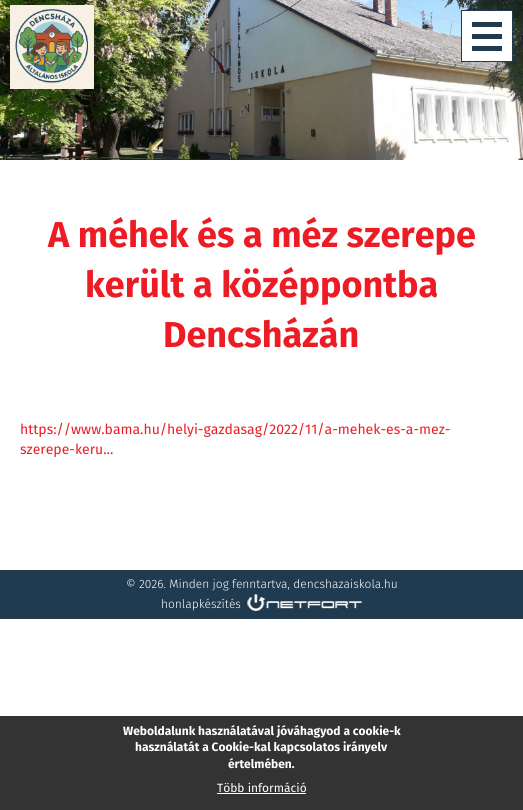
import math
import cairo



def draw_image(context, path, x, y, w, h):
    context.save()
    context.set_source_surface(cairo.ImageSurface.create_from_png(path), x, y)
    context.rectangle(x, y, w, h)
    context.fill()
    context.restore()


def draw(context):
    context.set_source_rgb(1, 1, 1)
    context.paint()
    draw_image(context, "images/2.png", 0, 0, 523, 160)
    draw_image(context, "images/1.png", 10, 5, 84, 84)
    context.set_source_rgb(1, 1, 1)
    context.rectangle(461.5, 10.5, 51, 51)
    context.fill_preserve()
    context.set_source_rgb(32 / 255, 59 / 255, 79 / 255)
    context.set_line_width(1)
    context.stroke()
    context.rectangle(472, 22, 30, 5)
    context.fill()
    context.rectangle(472, 34, 30, 5)
    context.fill()
    context.rectangle(472, 46, 30, 5)
    context.fill()
    context.rectangle(0, 570, 523, 49)
    context.fill()
    draw_image(context, "images/3.png", 247, 594, 115, 17)
    context.set_source_rgb(51 / 255, 51 / 255, 51 / 255)
    context.rectangle(0, 716, 523, 94)
    context.fill()
    context.set_source_rgb(1, 1, 1)
    context.rectangle(217, 793, 89, 1)
    context.fill()
    context.select_font_face("Fira Sans", cairo.FontSlant.NORMAL, cairo.FontWeight.BOLD)
    context.set_font_size(36)
    context.set_source_rgb(237 / 255, 28 / 255, 36 / 255)
    context.move_to(48, 247)
    context.show_text("A méhek és a méz szerepe")
    context.move_to(85, 297)
    context.show_text("került a középpontba")
    context.move_to(163, 347)
    context.show_text("Dencsházán")
    context.select_font_face("Fira Sans")
    context.set_font_size(14)
    context.move_to(20, 434)
    context.show_text("https://www.bama.hu/helyi-gazdasag/2022/11/a-mehek-es-a-mez-")
    context.move_to(20, 454)
    context.show_text("szerepe-keru...")
    context.select_font_face("Fira Sans Light")
    context.set_font_size(12)
    context.set_source_rgb(1, 1, 1)
    context.move_to(126, 588)
    context.show_text("© 2026. Minden jog fenntartva, dencshazaiskola.hu")
    context.move_to(161, 608)
    context.show_text("honlapkészítés")
    context.select_font_face("Fira Sans", cairo.FontSlant.NORMAL, cairo.FontWeight.BOLD)
    context.move_to(123, 735)
    context.show_text("Weboldalunk használatával jóváhagyod a cookie-k")
    context.move_to(135, 751)
    context.show_text("használatát a Cookie-kal kapcsolatos irányelv")
    context.move_to(228, 768)
    context.show_text("értelmében.")
    context.select_font_face("Fira Sans")
    context.move_to(217, 792)
    context.show_text("Több információ")


surface = cairo.ImageSurface(cairo.Format.RGB24, 523, 810)
context = cairo.Context(surface)
options = cairo.FontOptions()
options.set_hint_metrics(cairo.HintMetrics.OFF)
options.set_hint_style(cairo.HintStyle.NONE)
context.set_font_options(options)
context.set_miter_limit(4)
draw(context)
surface.write_to_png("out.png")
